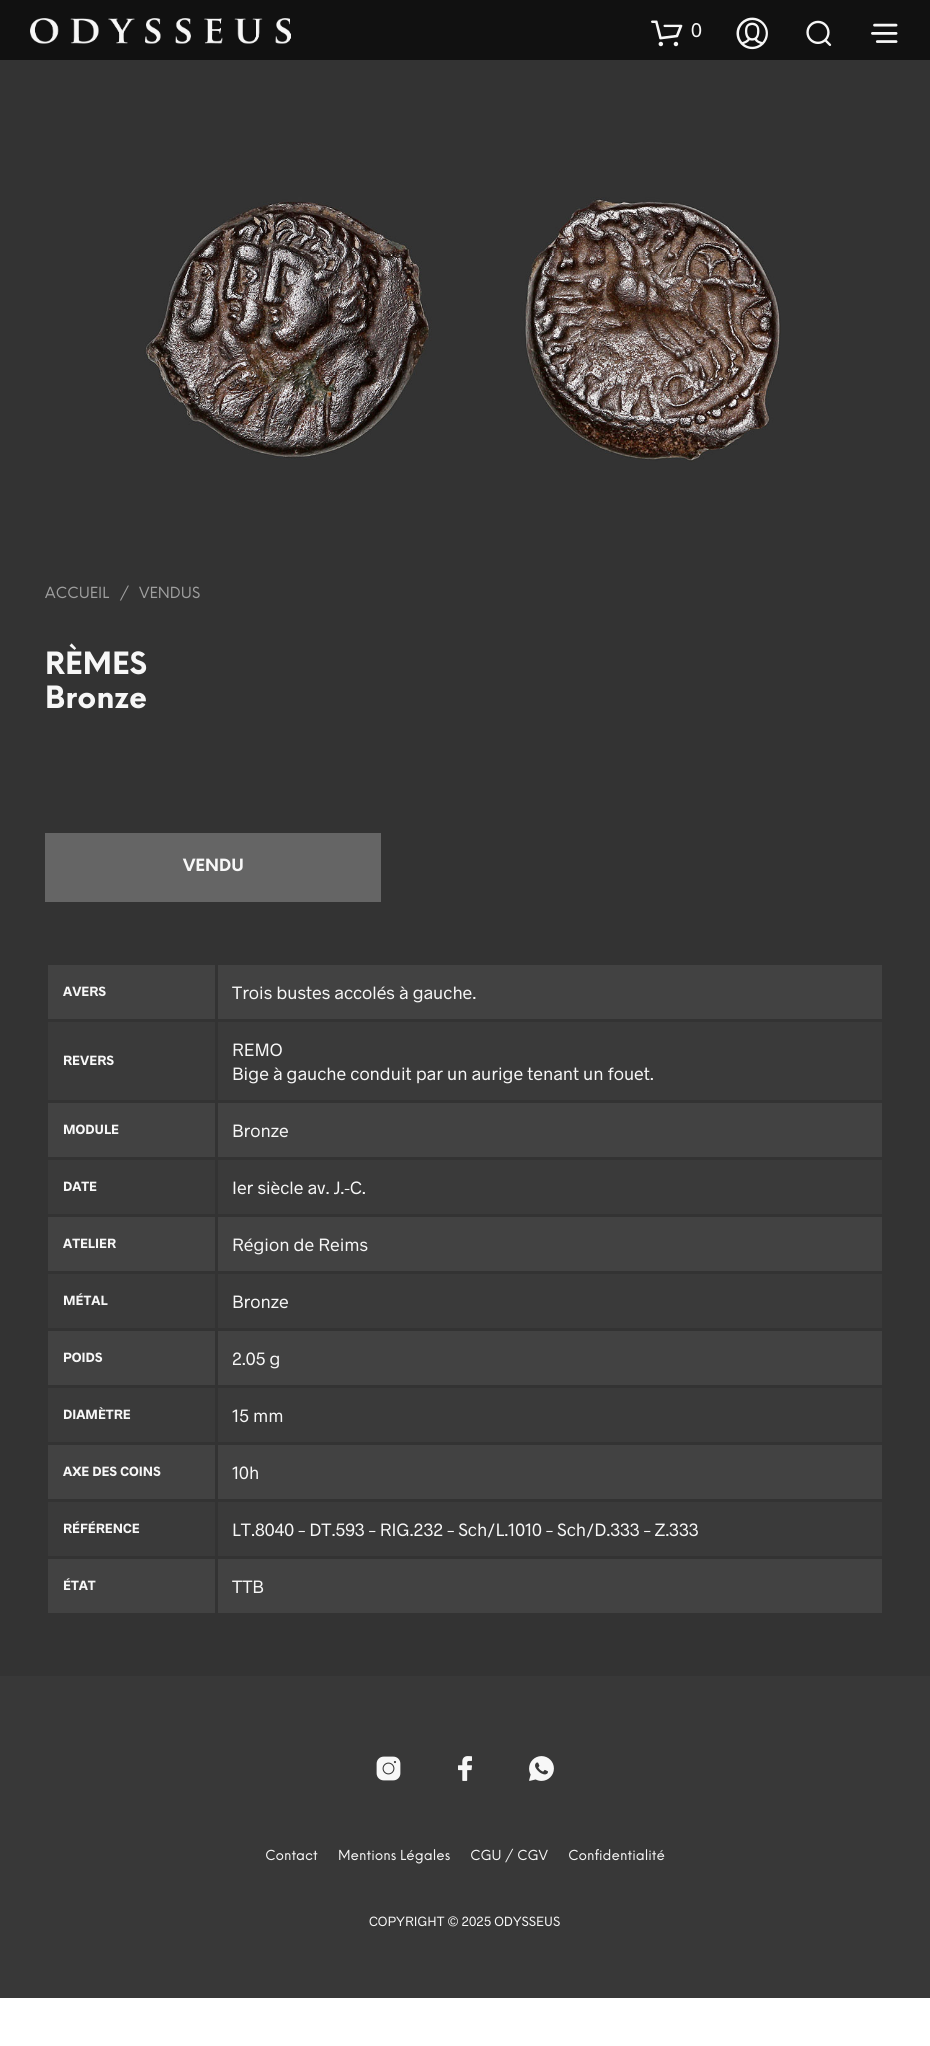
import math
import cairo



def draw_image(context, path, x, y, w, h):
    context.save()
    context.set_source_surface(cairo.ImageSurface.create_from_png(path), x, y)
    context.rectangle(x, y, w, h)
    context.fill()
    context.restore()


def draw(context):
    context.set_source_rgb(1, 1, 1)
    context.paint()
    context.set_source_rgb(51 / 255, 51 / 255, 51 / 255)
    context.rectangle(0, 60, 930, 1616)
    context.fill()
    context.set_source_rgb(17 / 255, 17 / 255, 17 / 255)
    context.rectangle(0, 0, 930, 60)
    context.fill()
    draw_image(context, "images/1.png", 30, 18, 261, 26)
    draw_image(context, "images/2.png", 651, 20, 32, 27)
    draw_image(context, "images/3.png", 736, 17, 32, 33)
    draw_image(context, "images/4.png", 806, 20, 26, 26)
    draw_image(context, "images/5.png", 871, 23, 27, 20)
    draw_image(context, "images/6.png", 144, 197, 637, 265)
    context.set_source_rgb(101 / 255, 101 / 255, 101 / 255)
    context.rectangle(45, 833, 336, 69)
    context.fill()
    context.set_source_rgb(66 / 255, 66 / 255, 66 / 255)
    context.rectangle(48, 965, 167, 54)
    context.fill()
    context.rectangle(218, 965, 664, 54)
    context.fill()
    context.set_source_rgb(58 / 255, 58 / 255, 58 / 255)
    context.rectangle(48, 1022, 167, 78)
    context.fill()
    context.rectangle(218, 1022, 664, 78)
    context.fill()
    context.set_source_rgb(66 / 255, 66 / 255, 66 / 255)
    context.rectangle(48, 1103, 167, 54)
    context.fill()
    context.rectangle(218, 1103, 664, 54)
    context.fill()
    context.set_source_rgb(58 / 255, 58 / 255, 58 / 255)
    context.rectangle(48, 1160, 167, 54)
    context.fill()
    context.rectangle(218, 1160, 664, 54)
    context.fill()
    context.set_source_rgb(66 / 255, 66 / 255, 66 / 255)
    context.rectangle(48, 1217, 167, 54)
    context.fill()
    context.rectangle(218, 1217, 664, 54)
    context.fill()
    context.set_source_rgb(58 / 255, 58 / 255, 58 / 255)
    context.rectangle(48, 1274, 167, 54)
    context.fill()
    context.rectangle(218, 1274, 664, 54)
    context.fill()
    context.set_source_rgb(66 / 255, 66 / 255, 66 / 255)
    context.rectangle(48, 1331, 167, 54)
    context.fill()
    context.rectangle(218, 1331, 664, 54)
    context.fill()
    context.set_source_rgb(58 / 255, 58 / 255, 58 / 255)
    context.rectangle(48, 1388, 167, 54)
    context.fill()
    context.rectangle(218, 1388, 664, 54)
    context.fill()
    context.set_source_rgb(66 / 255, 66 / 255, 66 / 255)
    context.rectangle(48, 1445, 167, 54)
    context.fill()
    context.rectangle(218, 1445, 664, 54)
    context.fill()
    context.set_source_rgb(58 / 255, 58 / 255, 58 / 255)
    context.rectangle(48, 1502, 167, 54)
    context.fill()
    context.rectangle(218, 1502, 664, 54)
    context.fill()
    context.set_source_rgb(66 / 255, 66 / 255, 66 / 255)
    context.rectangle(48, 1559, 167, 54)
    context.fill()
    context.rectangle(218, 1559, 664, 54)
    context.fill()
    context.set_source_rgb(56 / 255, 56 / 255, 56 / 255)
    context.rectangle(0, 1676, 930, 322)
    context.fill()
    draw_image(context, "images/7.png", 376, 1756, 25, 25)
    draw_image(context, "images/8.png", 458, 1756, 14, 25)
    draw_image(context, "images/9.png", 529, 1756, 25, 25)
    context.select_font_face("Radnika")
    context.set_font_size(20)
    context.set_source_rgb(247 / 255, 247 / 255, 247 / 255)
    context.move_to(691, 37)
    context.show_text("0")
    context.select_font_face("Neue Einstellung")
    context.set_font_size(15)
    context.set_source_rgb(159 / 255, 159 / 255, 159 / 255)
    context.move_to(45, 598)
    context.show_text("ACCUEIL")
    context.move_to(120, 598)
    context.show_text("/")
    context.move_to(139, 598)
    context.show_text("VENDUS")
    context.select_font_face("Neue Einstellung", cairo.FontSlant.NORMAL, cairo.FontWeight.BOLD)
    context.set_font_size(30)
    context.set_source_rgb(247 / 255, 247 / 255, 247 / 255)
    context.move_to(45, 674)
    context.show_text("RÈMES")
    context.move_to(45, 708)
    context.show_text("Bronze")
    context.set_font_size(16.5)
    context.move_to(183, 871)
    context.show_text("VENDU")
    context.select_font_face("Radnika", cairo.FontSlant.NORMAL, cairo.FontWeight.BOLD)
    context.set_font_size(13.5)
    context.move_to(63, 996)
    context.show_text("AVERS")
    context.select_font_face("Radnika")
    context.set_font_size(18)
    context.move_to(232, 999)
    context.show_text("Trois bustes accolés à gauche.")
    context.select_font_face("Radnika", cairo.FontSlant.NORMAL, cairo.FontWeight.BOLD)
    context.set_font_size(13.5)
    context.move_to(63, 1065)
    context.show_text("REVERS")
    context.select_font_face("Radnika")
    context.set_font_size(18)
    context.move_to(232, 1056)
    context.show_text("REMO")
    context.move_to(232, 1080)
    context.show_text("Bige à gauche conduit par un aurige tenant un fouet.")
    context.select_font_face("Radnika", cairo.FontSlant.NORMAL, cairo.FontWeight.BOLD)
    context.set_font_size(13.5)
    context.move_to(63, 1134)
    context.show_text("MODULE")
    context.select_font_face("Radnika")
    context.set_font_size(18)
    context.move_to(232, 1137)
    context.show_text("Bronze")
    context.select_font_face("Radnika", cairo.FontSlant.NORMAL, cairo.FontWeight.BOLD)
    context.set_font_size(13.5)
    context.move_to(63, 1191)
    context.show_text("DATE")
    context.select_font_face("Radnika")
    context.set_font_size(18)
    context.move_to(232, 1194)
    context.show_text("Ier siècle av. J.-C.")
    context.select_font_face("Radnika", cairo.FontSlant.NORMAL, cairo.FontWeight.BOLD)
    context.set_font_size(13.5)
    context.move_to(63, 1248)
    context.show_text("ATELIER")
    context.select_font_face("Radnika")
    context.set_font_size(18)
    context.move_to(232, 1251)
    context.show_text("Région de Reims")
    context.select_font_face("Radnika", cairo.FontSlant.NORMAL, cairo.FontWeight.BOLD)
    context.set_font_size(13.5)
    context.move_to(63, 1305)
    context.show_text("MÉTAL")
    context.select_font_face("Radnika")
    context.set_font_size(18)
    context.move_to(232, 1308)
    context.show_text("Bronze")
    context.select_font_face("Radnika", cairo.FontSlant.NORMAL, cairo.FontWeight.BOLD)
    context.set_font_size(13.5)
    context.move_to(63, 1362)
    context.show_text("POIDS")
    context.select_font_face("Radnika")
    context.set_font_size(18)
    context.move_to(232, 1365)
    context.show_text("2.05 g")
    context.select_font_face("Radnika", cairo.FontSlant.NORMAL, cairo.FontWeight.BOLD)
    context.set_font_size(13.5)
    context.move_to(63, 1419)
    context.show_text("DIAMÈTRE")
    context.select_font_face("Radnika")
    context.set_font_size(18)
    context.move_to(232, 1422)
    context.show_text("15 mm")
    context.select_font_face("Radnika", cairo.FontSlant.NORMAL, cairo.FontWeight.BOLD)
    context.set_font_size(13.5)
    context.move_to(63, 1476)
    context.show_text("AXE DES COINS")
    context.select_font_face("Radnika")
    context.set_font_size(18)
    context.move_to(232, 1479)
    context.show_text("10h")
    context.select_font_face("Radnika", cairo.FontSlant.NORMAL, cairo.FontWeight.BOLD)
    context.set_font_size(13.5)
    context.move_to(63, 1533)
    context.show_text("RÉFÉRENCE")
    context.select_font_face("Radnika")
    context.set_font_size(18)
    context.move_to(232, 1536)
    context.show_text("LT.8040 – DT.593 – RIG.232 – Sch/L.1010 – Sch/D.333 – Z.333")
    context.select_font_face("Radnika", cairo.FontSlant.NORMAL, cairo.FontWeight.BOLD)
    context.set_font_size(13.5)
    context.move_to(63, 1590)
    context.show_text("ÉTAT")
    context.select_font_face("Radnika")
    context.set_font_size(18)
    context.move_to(232, 1593)
    context.show_text("TTB")
    context.select_font_face("Neue Einstellung")
    context.set_font_size(13.5)
    context.move_to(265, 1860)
    context.show_text("Contact")
    context.move_to(338, 1860)
    context.show_text("Mentions Légales")
    context.move_to(470, 1860)
    context.show_text("CGU / CGV")
    context.move_to(568, 1860)
    context.show_text("Confidentialité")
    context.select_font_face("Radnika")
    context.move_to(369, 1926)
    context.show_text("COPYRIGHT © 2025 ODYSSEUS")


surface = cairo.ImageSurface(cairo.Format.RGB24, 930, 2046)
context = cairo.Context(surface)
options = cairo.FontOptions()
options.set_hint_metrics(cairo.HintMetrics.OFF)
options.set_hint_style(cairo.HintStyle.NONE)
context.set_font_options(options)
context.set_miter_limit(4)
draw(context)
surface.write_to_png("out.png")
